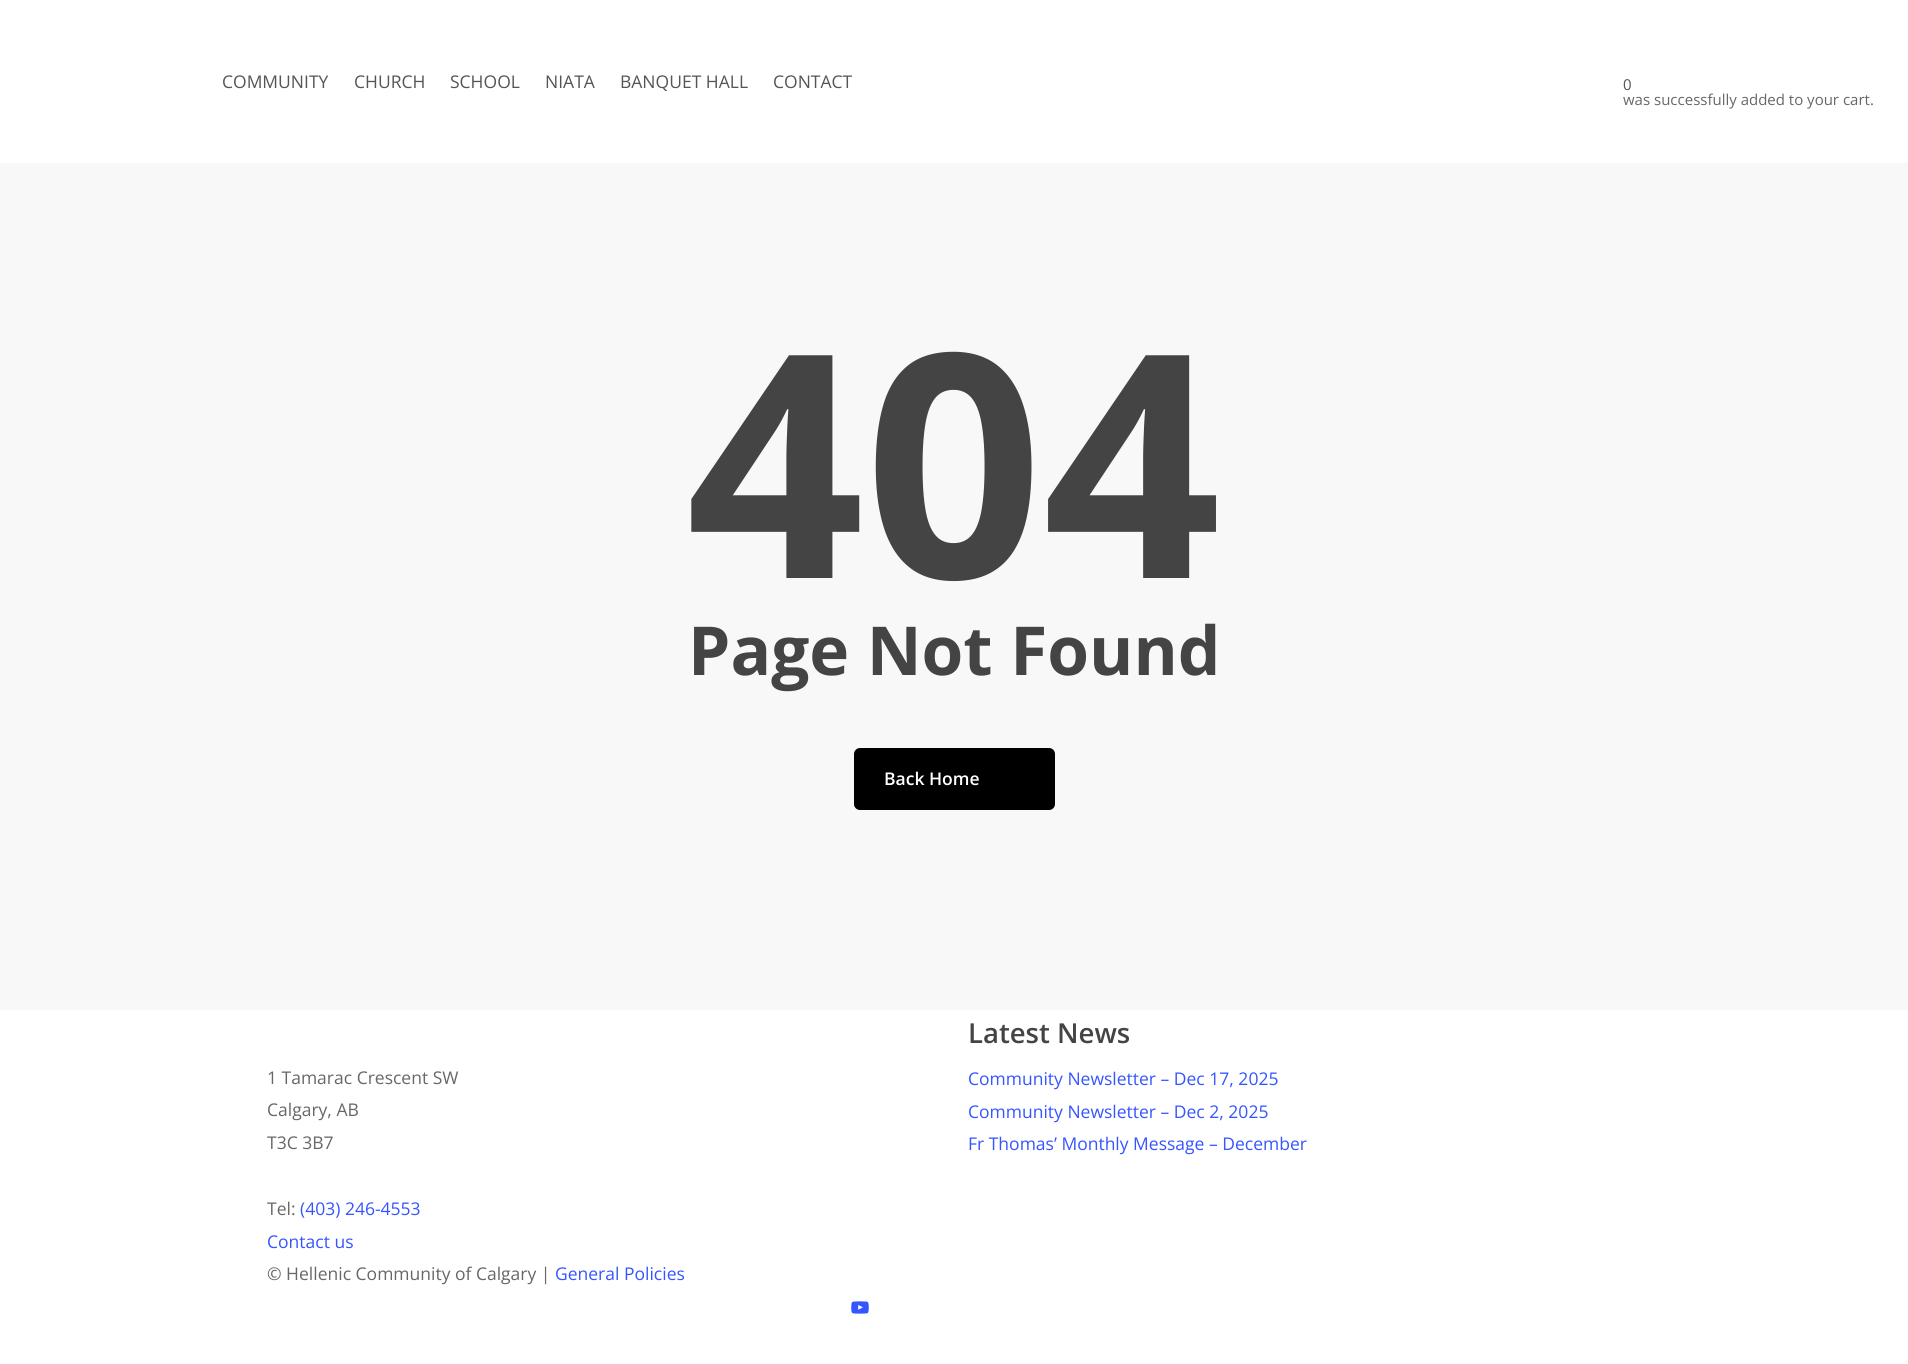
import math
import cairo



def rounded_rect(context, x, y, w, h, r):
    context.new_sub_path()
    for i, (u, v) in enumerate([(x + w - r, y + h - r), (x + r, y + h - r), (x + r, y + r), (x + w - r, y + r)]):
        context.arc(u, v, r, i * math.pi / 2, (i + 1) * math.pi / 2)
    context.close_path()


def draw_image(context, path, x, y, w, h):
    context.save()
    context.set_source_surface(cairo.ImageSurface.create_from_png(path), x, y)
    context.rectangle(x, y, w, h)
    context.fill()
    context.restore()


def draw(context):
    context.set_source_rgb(1, 1, 1)
    context.paint()
    context.set_source_rgb(248 / 255, 248 / 255, 248 / 255)
    context.rectangle(0, 163, 1908, 847)
    context.fill()
    context.set_source_rgb(0, 0, 0)
    rounded_rect(context, 854, 748, 201, 62, 6)
    context.fill()
    context.set_source_rgba(0, 0, 0, 0.1)
    context.new_path()
    context.move_to(854, 800)
    context.line_to(854, 804)
    context.curve_to(854, 807, 857, 810, 860, 810)
    context.line_to(1049, 810)
    context.curve_to(1052, 810, 1055, 807, 1055, 804)
    context.line_to(1055, 800)
    context.curve_to(1055, 803, 1052, 806, 1049, 806)
    context.line_to(860, 806)
    context.curve_to(857, 806, 854, 803, 854, 800)
    context.close_path()
    context.fill()
    draw_image(context, "images/1.png", 851, 1301, 18, 13)
    context.select_font_face("Open Sans")
    context.set_font_size(17.5)
    context.set_source_rgb(85 / 255, 85 / 255, 85 / 255)
    context.move_to(222, 88)
    context.show_text("COMMUNITY")
    context.move_to(354, 88)
    context.show_text("CHURCH")
    context.move_to(450, 88)
    context.show_text("SCHOOL")
    context.move_to(545, 88)
    context.show_text("NIATA")
    context.move_to(620, 88)
    context.show_text("BANQUET HALL")
    context.move_to(773, 88)
    context.show_text("CONTACT")
    context.set_font_size(15)
    context.move_to(1623, 90)
    context.show_text("0")
    context.set_source_rgb(103 / 255, 103 / 255, 103 / 255)
    context.move_to(1623, 105)
    context.show_text("was successfully added to your cart.")
    context.select_font_face("Open Sans", cairo.FontSlant.NORMAL, cairo.FontWeight.BOLD)
    context.set_font_size(312)
    context.set_source_rgb(68 / 255, 68 / 255, 68 / 255)
    context.move_to(686, 578)
    context.show_text("404")
    context.set_font_size(67.5)
    context.move_to(688, 675)
    context.show_text("Page Not Found")
    context.select_font_face("Open Sans SemiBold")
    context.set_font_size(17.5)
    context.set_source_rgb(1, 1, 1)
    context.move_to(884, 785)
    context.show_text("Back Home")
    context.select_font_face("Open Sans")
    context.set_source_rgb(103 / 255, 103 / 255, 103 / 255)
    context.move_to(267, 1084)
    context.show_text("1 Tamarac Crescent SW")
    context.move_to(267, 1116)
    context.show_text("Calgary, AB")
    context.move_to(267, 1149)
    context.show_text("T3C 3B7")
    context.move_to(267, 1215)
    context.show_text("Tel:")
    context.set_source_rgb(53 / 255, 85 / 255, 1)
    context.move_to(300, 1215)
    context.show_text("(403) 246-4553")
    context.move_to(267, 1248)
    context.show_text("Contact us")
    context.select_font_face("Open Sans SemiBold")
    context.set_font_size(27.5)
    context.set_source_rgb(68 / 255, 68 / 255, 68 / 255)
    context.move_to(968, 1043)
    context.show_text("Latest News")
    context.select_font_face("Open Sans")
    context.set_font_size(17.5)
    context.set_source_rgb(53 / 255, 85 / 255, 1)
    context.move_to(968, 1085)
    context.show_text("Community Newsletter – Dec 17, 2025")
    context.move_to(968, 1118)
    context.show_text("Community Newsletter – Dec 2, 2025")
    context.move_to(968, 1150)
    context.show_text("Fr Thomas’ Monthly Message – December")
    context.set_source_rgb(103 / 255, 103 / 255, 103 / 255)
    context.move_to(267, 1280)
    context.show_text("© Hellenic Community of Calgary |")
    context.set_source_rgb(53 / 255, 85 / 255, 1)
    context.move_to(555, 1280)
    context.show_text("General Policies")


surface = cairo.ImageSurface(cairo.Format.RGB24, 1908, 1364)
context = cairo.Context(surface)
options = cairo.FontOptions()
options.set_hint_metrics(cairo.HintMetrics.OFF)
options.set_hint_style(cairo.HintStyle.NONE)
context.set_font_options(options)
context.set_miter_limit(4)
draw(context)
surface.write_to_png("out.png")
